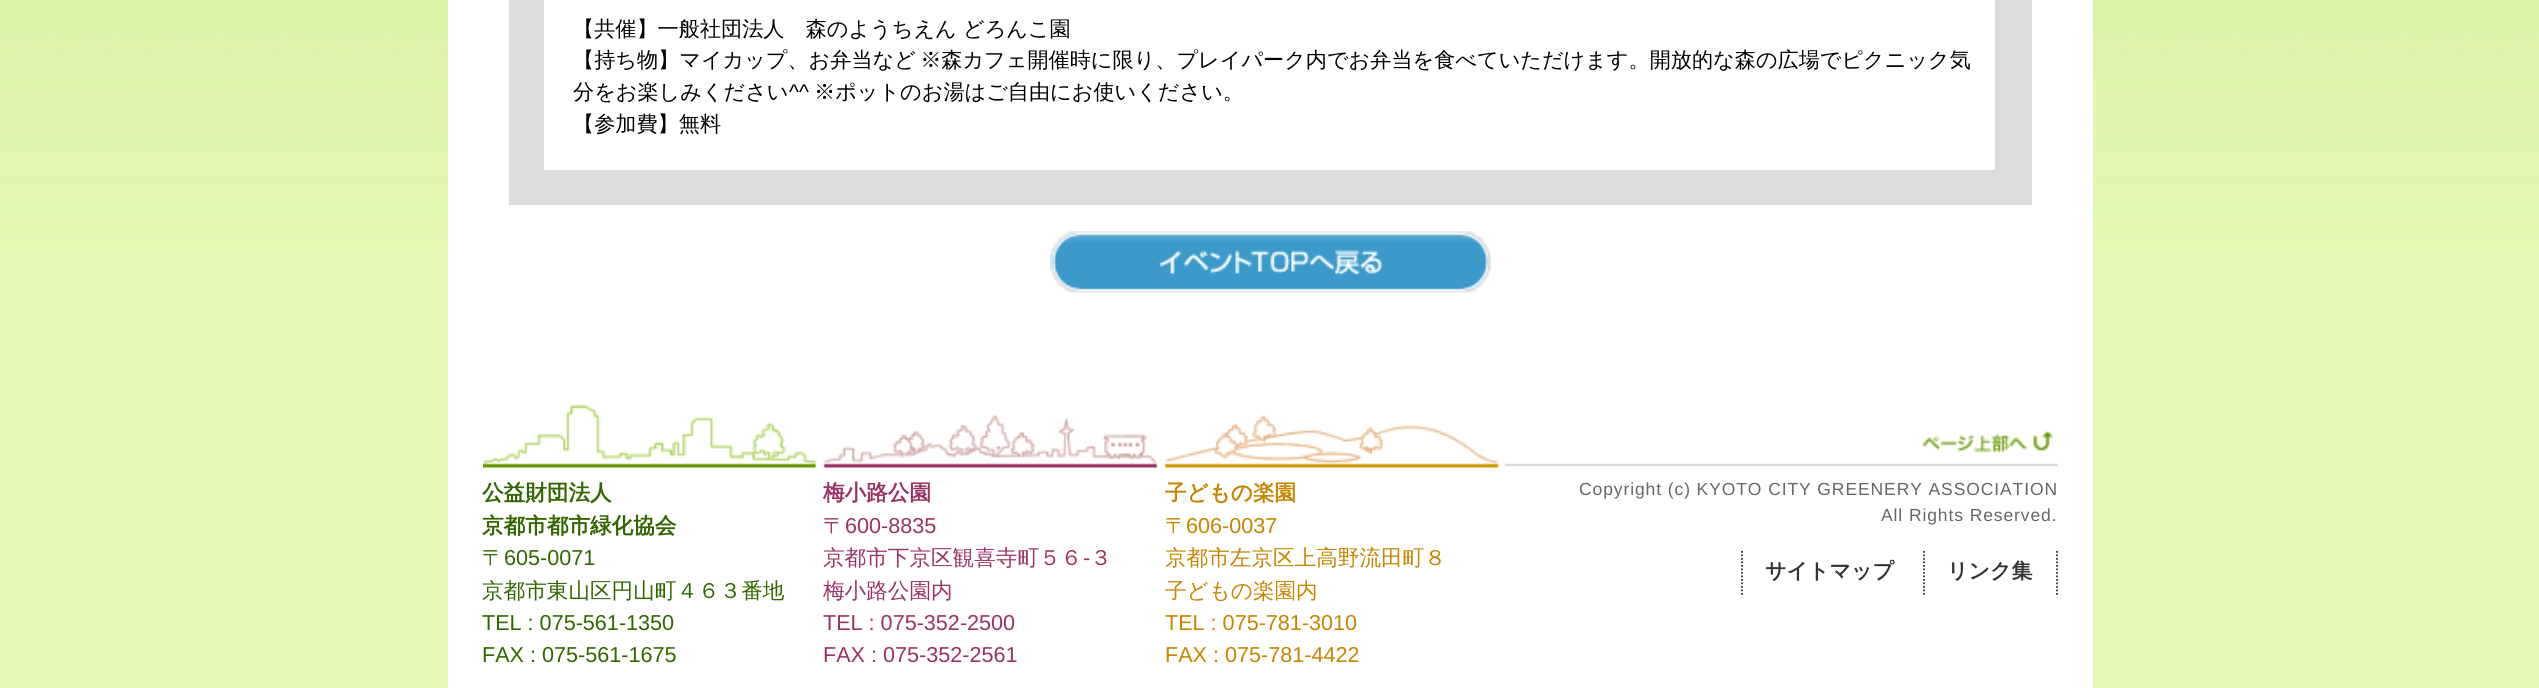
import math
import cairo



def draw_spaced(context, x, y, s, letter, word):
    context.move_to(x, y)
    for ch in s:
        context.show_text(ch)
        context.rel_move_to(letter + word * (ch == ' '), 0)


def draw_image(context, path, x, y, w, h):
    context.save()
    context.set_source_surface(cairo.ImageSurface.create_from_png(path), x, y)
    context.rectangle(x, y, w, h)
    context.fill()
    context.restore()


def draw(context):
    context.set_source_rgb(228 / 255, 249 / 255, 182 / 255)
    context.paint()
    draw_image(context, "images/1.png", 0, 0, 2539, 247)
    context.set_source_rgb(1, 1, 1)
    context.rectangle(448, 0, 1645, 688)
    context.fill()
    context.set_source_rgb(220 / 255, 220 / 255, 220 / 255)
    context.rectangle(509, 0, 1523, 205)
    context.fill()
    context.set_source_rgb(1, 1, 1)
    context.rectangle(544, 0, 1451, 170)
    context.fill()
    draw_image(context, "images/2.png", 1050, 231, 441, 62)
    draw_image(context, "images/3.png", 483, 404, 1575, 64)
    draw_image(context, "images/4.png", 1922, 430, 132, 23)
    context.new_path()
    context.move_to(2057, 551)
    context.line_to(2057, 595)
    context.set_source_rgb(51 / 255, 51 / 255, 51 / 255)
    context.set_line_width(1.8)
    context.set_dash([1.75, 1.75])
    context.stroke()
    context.new_path()
    context.move_to(1742, 551)
    context.line_to(1742, 595)
    context.stroke()
    context.new_path()
    context.move_to(1924, 551)
    context.line_to(1924, 595)
    context.stroke()
    context.select_font_face("WenQuanYi Zen Hei Medium")
    context.set_font_size(21.15)
    context.set_source_rgb(0, 0, 0)
    context.move_to(573, 36)
    context.show_text("【共催】一般社団法人　森のようちえん どろんこ園")
    draw_spaced(context, 573, 67, "【持ち物】マイカップ、お弁当など ※森カフェ開催時に限り、プレイパーク内でお弁当を食べていただけます。開放的な森の広場でピクニック気", 0, -2)
    context.move_to(573, 99)
    context.show_text("分をお楽しみください")
    context.select_font_face("Liberation Sans")
    context.move_to(789, 99)
    context.show_text("^^")
    context.select_font_face("WenQuanYi Zen Hei Medium")
    context.move_to(814, 99)
    context.show_text("※ポットのお湯はご自由にお使いください。")
    context.move_to(573, 131)
    context.show_text("【参加費】無料")
    context.select_font_face("WenQuanYi Zen Hei", cairo.FontSlant.NORMAL, cairo.FontWeight.BOLD)
    context.set_font_size(21.6)
    context.set_source_rgb(51 / 255, 102 / 255, 0)
    context.move_to(482, 500)
    context.show_text("公益財団法人")
    context.move_to(482, 533)
    context.show_text("京都市都市緑化協会")
    context.select_font_face("WenQuanYi Zen Hei Medium")
    context.move_to(482, 565)
    context.show_text("〒")
    context.select_font_face("Liberation Sans")
    context.move_to(504, 565)
    context.show_text("605-0071")
    context.select_font_face("WenQuanYi Zen Hei Medium")
    context.move_to(482, 598)
    context.show_text("京都市東山区円山町４６３番地")
    context.select_font_face("Liberation Sans")
    context.move_to(482, 630)
    context.show_text("TEL : 075-561-1350")
    context.move_to(482, 662)
    context.show_text("FAX : 075-561-1675")
    context.select_font_face("WenQuanYi Zen Hei", cairo.FontSlant.NORMAL, cairo.FontWeight.BOLD)
    context.set_source_rgb(153 / 255, 51 / 255, 102 / 255)
    context.move_to(823, 500)
    context.show_text("梅小路公園")
    context.select_font_face("WenQuanYi Zen Hei Medium")
    context.move_to(823, 533)
    context.show_text("〒")
    context.select_font_face("Liberation Sans")
    context.move_to(845, 533)
    context.show_text("600-8835")
    context.select_font_face("WenQuanYi Zen Hei Medium")
    context.move_to(823, 565)
    context.show_text("京都市下京区観喜寺町５６")
    context.select_font_face("Liberation Sans")
    context.move_to(1083, 565)
    context.show_text("-")
    context.select_font_face("WenQuanYi Zen Hei Medium")
    context.move_to(1090, 565)
    context.show_text("３")
    context.move_to(823, 598)
    context.show_text("梅小路公園内")
    context.select_font_face("Liberation Sans")
    context.move_to(823, 630)
    context.show_text("TEL : 075-352-2500")
    context.move_to(823, 662)
    context.show_text("FAX : 075-352-2561")
    context.select_font_face("WenQuanYi Zen Hei", cairo.FontSlant.NORMAL, cairo.FontWeight.BOLD)
    context.set_source_rgb(197 / 255, 133 / 255, 0)
    context.move_to(1165, 500)
    context.show_text("子どもの楽園")
    context.select_font_face("WenQuanYi Zen Hei Medium")
    context.move_to(1165, 533)
    context.show_text("〒")
    context.select_font_face("Liberation Sans")
    context.move_to(1186, 533)
    context.show_text("606-0037")
    context.select_font_face("WenQuanYi Zen Hei Medium")
    context.move_to(1165, 565)
    context.show_text("京都市左京区上高野流田町８")
    context.move_to(1165, 598)
    context.show_text("子どもの楽園内")
    context.select_font_face("Liberation Sans")
    context.move_to(1165, 630)
    context.show_text("TEL : 075-781-3010")
    context.move_to(1165, 662)
    context.show_text("FAX : 075-781-4422")
    context.set_font_size(17.5)
    context.set_source_rgb(102 / 255, 102 / 255, 102 / 255)
    draw_spaced(context, 1579, 495, "Copyright (c) KYOTO CITY GREENERY ASSOCIATION", 0.9, 0)
    draw_spaced(context, 1881, 521, "All Rights Reserved.", 0.9, 0)
    context.select_font_face("WenQuanYi Zen Hei", cairo.FontSlant.NORMAL, cairo.FontWeight.BOLD)
    context.set_font_size(21)
    context.set_source_rgb(51 / 255, 51 / 255, 51 / 255)
    context.move_to(1765, 578)
    context.show_text("サイトマップ")
    context.move_to(1947, 578)
    context.show_text("リンク集")


surface = cairo.ImageSurface(cairo.Format.RGB24, 2539, 688)
context = cairo.Context(surface)
options = cairo.FontOptions()
options.set_hint_metrics(cairo.HintMetrics.OFF)
options.set_hint_style(cairo.HintStyle.NONE)
context.set_font_options(options)
context.set_miter_limit(4)
draw(context)
surface.write_to_png("out.png")
